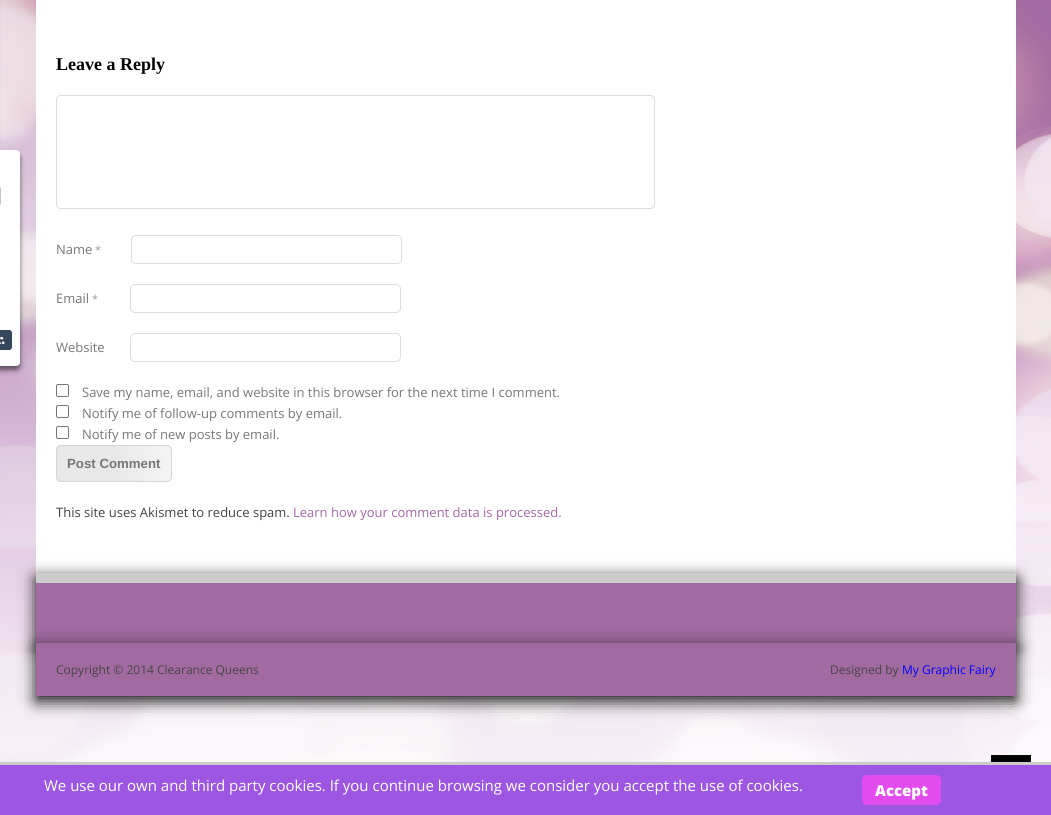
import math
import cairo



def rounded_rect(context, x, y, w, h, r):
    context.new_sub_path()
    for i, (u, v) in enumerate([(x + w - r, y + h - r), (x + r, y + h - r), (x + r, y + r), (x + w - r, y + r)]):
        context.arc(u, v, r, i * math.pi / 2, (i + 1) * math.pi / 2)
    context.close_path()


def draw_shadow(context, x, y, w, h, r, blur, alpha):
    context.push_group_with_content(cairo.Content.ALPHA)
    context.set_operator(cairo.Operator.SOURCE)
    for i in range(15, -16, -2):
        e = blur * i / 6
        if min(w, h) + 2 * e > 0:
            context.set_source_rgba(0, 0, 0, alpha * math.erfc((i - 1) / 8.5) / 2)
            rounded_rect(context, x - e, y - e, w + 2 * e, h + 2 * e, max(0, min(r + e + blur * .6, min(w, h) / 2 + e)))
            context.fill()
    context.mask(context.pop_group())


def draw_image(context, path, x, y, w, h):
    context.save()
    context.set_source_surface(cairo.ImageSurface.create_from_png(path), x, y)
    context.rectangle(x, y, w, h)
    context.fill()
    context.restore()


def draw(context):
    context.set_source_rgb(1, 1, 1)
    context.paint()
    draw_image(context, "images/1.png", 0, 0, 1051, 762)
    context.set_source_rgb(1, 1, 1)
    context.rectangle(36, 0, 980, 573)
    context.fill()
    context.set_source_rgb(15 / 255, 15 / 255, 15 / 255)
    draw_shadow(context, -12, 154, 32, 216, 4, 2.5, 0.6)
    context.set_source_rgb(1, 1, 1)
    rounded_rect(context, -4, 150, 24, 216, 4)
    context.fill()
    draw_image(context, "images/2.png", 0, 187, 1, 18)
    draw_image(context, "images/3.png", 0, 330, 12, 20)
    rounded_rect(context, 56.5, 95.5, 598, 113, 4.5)
    context.set_source_rgb(221 / 255, 221 / 255, 221 / 255)
    context.set_line_width(1)
    context.stroke()
    rounded_rect(context, 131.5, 235.5, 270, 28, 4.5)
    context.stroke()
    rounded_rect(context, 130.5, 284.5, 270, 28, 4.5)
    context.stroke()
    rounded_rect(context, 130.5, 333.5, 270, 28, 4.5)
    context.stroke()
    rounded_rect(context, 56.5, 384.5, 12, 12, 1.5)
    context.set_source_rgb(118 / 255, 118 / 255, 118 / 255)
    context.stroke()
    rounded_rect(context, 56.5, 405.5, 12, 12, 1.5)
    context.stroke()
    rounded_rect(context, 56.5, 426.5, 12, 12, 1.5)
    context.stroke()
    context.save()
    rounded_rect(context, 56, 445, 116, 37, 5)
    context.clip()
    gradient = cairo.LinearGradient(57, 464, 171, 464)
    gradient.add_color_stop_rgba(0.5, 232 / 255, 232 / 255, 232 / 255, 1)
    gradient.add_color_stop_rgba(1, 244 / 255, 244 / 255, 244 / 255, 1)
    context.set_source(gradient)
    context.rectangle(57, 445, 114, 37)
    context.fill()
    context.restore()
    rounded_rect(context, 56.5, 445.5, 115, 36, 4.5)
    context.set_source_rgb(213 / 255, 213 / 255, 213 / 255)
    context.stroke()
    context.set_source_rgb(15 / 255, 15 / 255, 15 / 255)
    draw_shadow(context, 36, 578, 980, 70, 0, 8, 1)
    context.set_source_rgb(161 / 255, 106 / 255, 161 / 255)
    context.rectangle(36, 583, 980, 60)
    context.fill()
    context.set_source_rgb(204 / 255, 204 / 255, 204 / 255)
    context.rectangle(36, 573, 980, 10)
    context.fill()
    context.set_source_rgb(15 / 255, 15 / 255, 15 / 255)
    draw_shadow(context, 36, 648, 980, 53, 0, 8, 1)
    context.set_source_rgb(161 / 255, 106 / 255, 161 / 255)
    context.rectangle(36, 643, 980, 53)
    context.fill()
    draw_image(context, "images/4.png", 991, 755, 40, 7)
    context.set_source_rgb(156 / 255, 86 / 255, 226 / 255)
    context.rectangle(0, 765, 1051, 50)
    context.fill()
    context.set_source_rgb(204 / 255, 204 / 255, 204 / 255)
    context.rectangle(0, 762, 1051, 3)
    context.fill()
    context.set_source_rgb(226 / 255, 76 / 255, 239 / 255)
    rounded_rect(context, 862, 775, 79, 30, 5)
    context.fill()
    context.select_font_face("Liberation Serif", cairo.FontSlant.NORMAL, cairo.FontWeight.BOLD)
    context.set_font_size(18)
    context.set_source_rgb(0, 0, 0)
    context.move_to(56, 70)
    context.show_text("Leave a Reply")
    context.select_font_face("Open Sans")
    context.set_font_size(13)
    context.set_source_rgb(119 / 255, 119 / 255, 119 / 255)
    context.move_to(56, 254)
    context.show_text("Name")
    context.set_font_size(11)
    context.set_source_rgb(153 / 255, 153 / 255, 153 / 255)
    context.move_to(95, 254)
    context.show_text("*")
    context.set_font_size(13)
    context.set_source_rgb(119 / 255, 119 / 255, 119 / 255)
    context.move_to(56, 303)
    context.show_text("Email")
    context.set_font_size(11)
    context.set_source_rgb(153 / 255, 153 / 255, 153 / 255)
    context.move_to(92, 303)
    context.show_text("*")
    context.set_font_size(13)
    context.set_source_rgb(119 / 255, 119 / 255, 119 / 255)
    context.move_to(56, 352)
    context.show_text("Website")
    context.move_to(82, 397)
    context.show_text("Save my name, email, and website in this browser for the next time I comment.")
    context.move_to(82, 418)
    context.show_text("Notify me of follow-up comments by email.")
    context.move_to(82, 439)
    context.show_text("Notify me of new posts by email.")
    context.select_font_face("Liberation Sans", cairo.FontSlant.NORMAL, cairo.FontWeight.BOLD)
    context.set_font_size(13.25)
    context.move_to(67, 468)
    context.show_text("Post Comment")
    context.select_font_face("Open Sans")
    context.set_font_size(13)
    context.set_source_rgb(68 / 255, 68 / 255, 68 / 255)
    context.move_to(56, 517)
    context.show_text("This site uses Akismet to reduce spam.")
    context.set_source_rgb(161 / 255, 106 / 255, 161 / 255)
    context.move_to(293, 517)
    context.show_text("Learn how your comment data is processed.")
    context.set_font_size(12)
    context.set_source_rgb(68 / 255, 68 / 255, 68 / 255)
    context.move_to(56, 674)
    context.show_text("Copyright © 2014 Clearance Queens")
    context.move_to(830, 674)
    context.show_text("Designed by")
    context.set_source_rgb(0, 0, 1)
    context.move_to(902, 674)
    context.show_text("My Graphic Fairy")
    context.set_font_size(15)
    context.set_source_rgb(1, 1, 1)
    context.move_to(44, 791)
    context.show_text("We use our own and third party cookies. If you continue browsing we consider you accept the use of cookies.")
    context.select_font_face("Open Sans ExtraBold")
    context.move_to(875, 796)
    context.show_text("Accept")


surface = cairo.ImageSurface(cairo.Format.RGB24, 1051, 815)
context = cairo.Context(surface)
options = cairo.FontOptions()
options.set_hint_metrics(cairo.HintMetrics.OFF)
options.set_hint_style(cairo.HintStyle.NONE)
context.set_font_options(options)
context.set_miter_limit(4)
draw(context)
surface.write_to_png("out.png")
